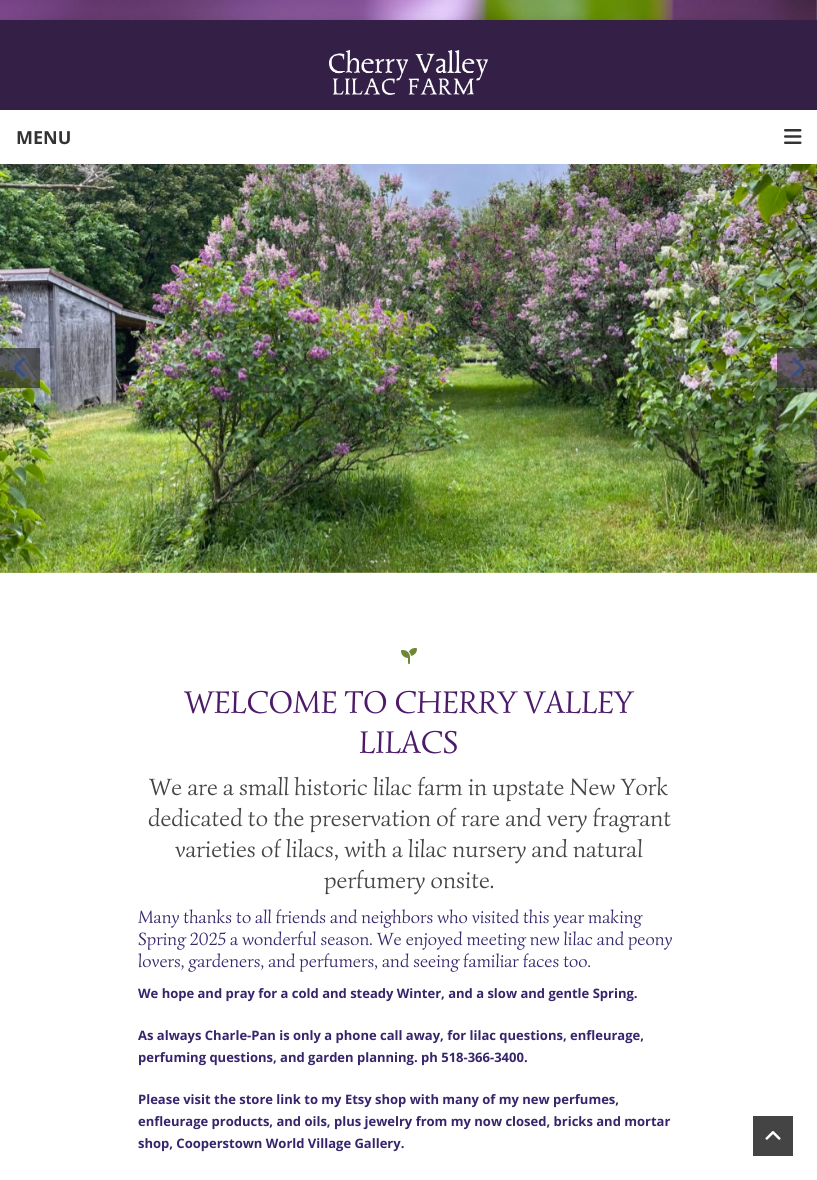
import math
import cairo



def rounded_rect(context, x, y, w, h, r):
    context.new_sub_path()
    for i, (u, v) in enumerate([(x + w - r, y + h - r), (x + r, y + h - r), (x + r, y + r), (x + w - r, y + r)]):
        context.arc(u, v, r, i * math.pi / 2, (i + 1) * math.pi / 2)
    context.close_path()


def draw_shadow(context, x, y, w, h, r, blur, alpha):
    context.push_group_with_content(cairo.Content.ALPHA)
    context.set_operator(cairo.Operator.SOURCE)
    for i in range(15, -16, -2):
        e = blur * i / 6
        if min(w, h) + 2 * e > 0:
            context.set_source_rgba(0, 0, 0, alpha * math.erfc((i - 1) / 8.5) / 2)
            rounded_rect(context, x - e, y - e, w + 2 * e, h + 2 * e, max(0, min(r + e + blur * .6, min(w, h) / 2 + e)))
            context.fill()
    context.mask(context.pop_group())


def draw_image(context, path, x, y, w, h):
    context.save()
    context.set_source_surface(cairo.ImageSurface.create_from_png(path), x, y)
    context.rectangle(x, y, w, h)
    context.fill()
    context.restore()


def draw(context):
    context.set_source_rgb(1, 1, 1)
    context.paint()
    draw_image(context, "images/1.png", 0, 0, 817, 20)
    context.set_source_rgb(0, 0, 0)
    draw_shadow(context, 0, 20, 817, 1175, 0, 5, 0.1)
    context.set_source_rgb(1, 1, 1)
    context.rectangle(0, 110, 817, 1070)
    context.fill()
    context.set_source_rgb(52 / 255, 31 / 255, 71 / 255)
    context.rectangle(0, 20, 817, 90)
    context.fill()
    draw_image(context, "images/2.png", 329, 50, 159, 45)
    draw_image(context, "images/3.png", 784, 129, 18, 15)
    draw_image(context, "images/4.png", 0, 164, 817, 409)
    context.set_source_rgba(51 / 255, 51 / 255, 51 / 255, 0.7)
    context.rectangle(0, 348, 40, 40)
    context.fill()
    draw_image(context, "images/5.png", 13, 357, 12, 20)
    context.rectangle(777, 348, 40, 40)
    context.fill()
    draw_image(context, "images/6.png", 792, 357, 12, 20)
    draw_image(context, "images/7.png", 401, 648, 16, 16)
    context.set_source_rgb(68 / 255, 68 / 255, 68 / 255)
    context.rectangle(753, 1116, 40, 40)
    context.fill()
    draw_image(context, "images/8.png", 765, 1131, 16, 9)
    context.select_font_face("Open Sans", cairo.FontSlant.NORMAL, cairo.FontWeight.BOLD)
    context.set_font_size(18)
    context.set_source_rgb(51 / 255, 51 / 255, 51 / 255)
    context.move_to(16, 144)
    context.show_text("MENU")
    context.select_font_face("Simonetta")
    context.set_font_size(32)
    context.set_source_rgb(76 / 255, 26 / 255, 105 / 255)
    context.move_to(184, 713)
    context.show_text("WELCOME TO CHERRY VALLEY")
    context.move_to(359, 753)
    context.show_text("LILACS")
    context.set_font_size(24)
    context.set_source_rgb(68 / 255, 68 / 255, 68 / 255)
    context.move_to(149, 795)
    context.show_text("We are a small historic lilac farm in upstate New York")
    context.move_to(148, 826)
    context.show_text("dedicated to the preservation of rare and very fragrant")
    context.move_to(175, 857)
    context.show_text("varieties of lilacs, with a lilac nursery and natural")
    context.move_to(324, 888)
    context.show_text("perfumery onsite.")
    context.set_font_size(18)
    context.set_source_rgb(54 / 255, 37 / 255, 107 / 255)
    context.move_to(138, 923)
    context.show_text("Many thanks to all friends and neighbors who visited this year making")
    context.move_to(138, 945)
    context.show_text("Spring 2025 a wonderful season. We enjoyed meeting new lilac and peony")
    context.move_to(138, 967)
    context.show_text("lovers, gardeners, and perfumers, and seeing familiar faces too.")
    context.select_font_face("Open Sans", cairo.FontSlant.NORMAL, cairo.FontWeight.BOLD)
    context.set_font_size(13)
    context.move_to(138, 998)
    context.show_text("We hope and pray for a cold and steady Winter, and a slow and gentle Spring.")
    context.move_to(138, 1040)
    context.show_text("As always Charle-Pan is only a phone call away, for lilac questions, enfleurage,")
    context.move_to(138, 1062)
    context.show_text("perfuming questions, and garden planning. ph 518-366-3400.")
    context.move_to(138, 1104)
    context.show_text("Please visit the store link to my Etsy shop with many of my new perfumes,")
    context.move_to(138, 1126)
    context.show_text("enfleurage products, and oils, plus jewelry from my now closed, bricks and mortar")
    context.move_to(138, 1148)
    context.show_text("shop, Cooperstown World Village Gallery.")


surface = cairo.ImageSurface(cairo.Format.RGB24, 817, 1180)
context = cairo.Context(surface)
options = cairo.FontOptions()
options.set_hint_metrics(cairo.HintMetrics.OFF)
options.set_hint_style(cairo.HintStyle.NONE)
context.set_font_options(options)
context.set_miter_limit(4)
draw(context)
surface.write_to_png("out.png")
